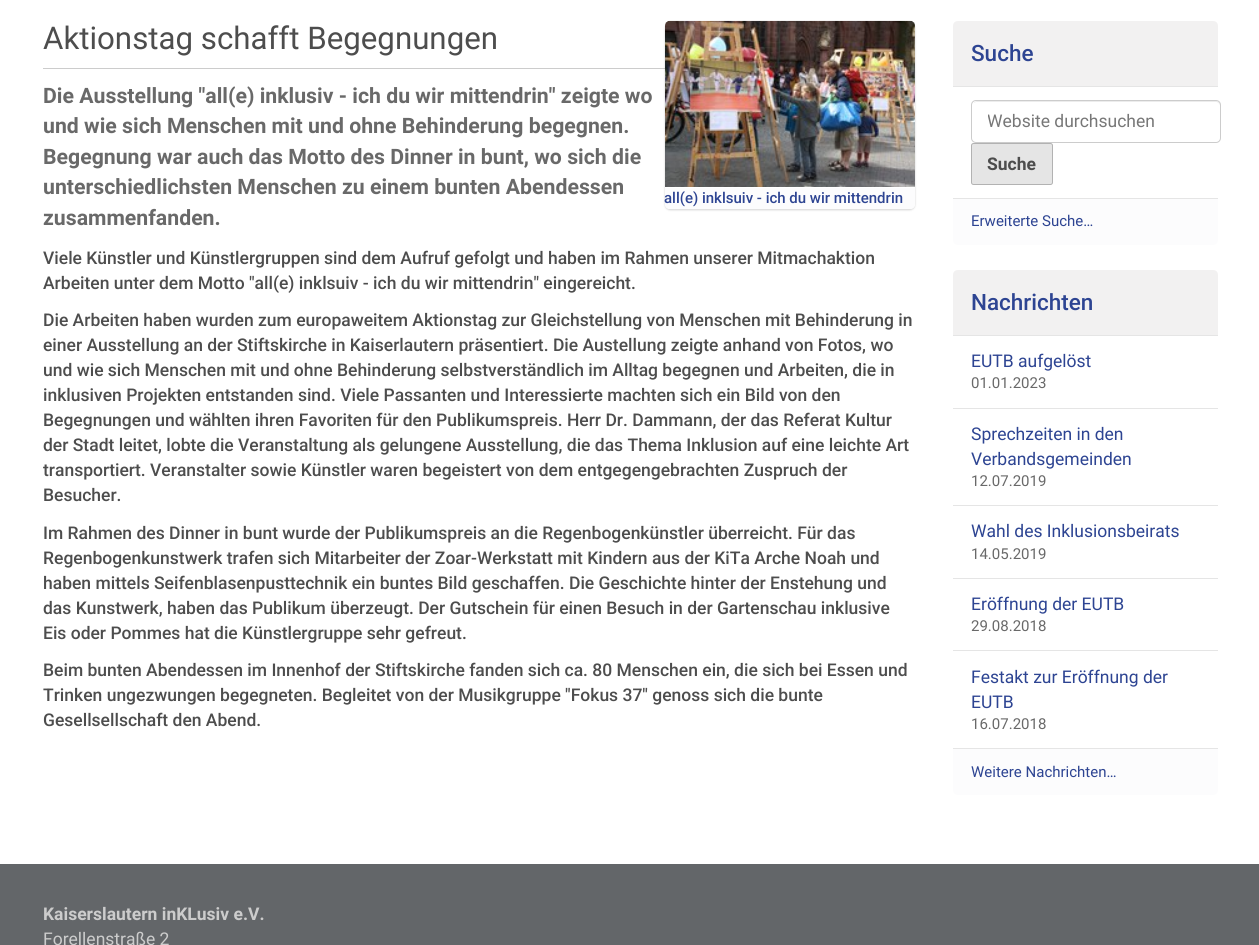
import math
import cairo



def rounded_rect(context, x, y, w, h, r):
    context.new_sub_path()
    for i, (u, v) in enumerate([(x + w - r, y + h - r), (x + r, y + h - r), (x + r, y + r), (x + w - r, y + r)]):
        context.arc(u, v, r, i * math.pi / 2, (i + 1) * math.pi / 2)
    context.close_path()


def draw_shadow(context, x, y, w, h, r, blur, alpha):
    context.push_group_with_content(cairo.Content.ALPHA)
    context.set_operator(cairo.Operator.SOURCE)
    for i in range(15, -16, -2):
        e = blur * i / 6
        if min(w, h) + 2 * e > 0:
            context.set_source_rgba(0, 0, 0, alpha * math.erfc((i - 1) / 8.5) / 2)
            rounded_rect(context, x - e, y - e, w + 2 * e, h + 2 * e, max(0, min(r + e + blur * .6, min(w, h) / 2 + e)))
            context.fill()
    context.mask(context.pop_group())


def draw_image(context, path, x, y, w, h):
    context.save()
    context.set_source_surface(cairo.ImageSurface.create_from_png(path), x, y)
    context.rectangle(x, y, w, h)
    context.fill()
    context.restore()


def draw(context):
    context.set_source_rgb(1, 1, 1)
    context.paint()
    context.set_source_rgb(204 / 255, 204 / 255, 204 / 255)
    context.rectangle(43, 68, 622, 1)
    context.fill()
    context.set_source_rgb(0, 0, 0)
    draw_shadow(context, 665, 23, 250, 187, 5, 1, 0.17)
    context.set_source_rgb(1, 1, 1)
    rounded_rect(context, 665, 21, 250, 188, 5)
    context.fill()
    draw_image(context, "images/1.png", 665, 20, 250, 167)
    context.set_source_rgb(252 / 255, 252 / 255, 253 / 255)
    context.new_path()
    context.move_to(665, 188)
    context.line_to(915, 188)
    context.line_to(915, 204)
    context.curve_to(915, 207, 913, 209, 910, 209)
    context.line_to(670, 209)
    context.curve_to(667, 209, 665, 207, 665, 204)
    context.close_path()
    context.fill()
    context.set_source_rgb(242 / 255, 241 / 255, 241 / 255)
    context.new_path()
    context.move_to(958, 21)
    context.line_to(1213, 21)
    context.curve_to(1216, 21, 1218, 23, 1218, 26)
    context.line_to(1218, 86)
    context.line_to(953, 86)
    context.line_to(953, 26)
    context.curve_to(953, 23, 955, 21, 958, 21)
    context.close_path()
    context.fill()
    context.set_source_rgb(229 / 255, 229 / 255, 229 / 255)
    context.rectangle(953, 86, 265, 1)
    context.fill()
    context.set_source_rgb(236 / 255, 236 / 255, 236 / 255)
    context.new_path()
    context.move_to(976, 102)
    context.line_to(1216, 102)
    context.curve_to(1218, 102, 1220, 104, 1220, 106)
    context.line_to(1220, 105)
    context.curve_to(1220, 103, 1218, 101, 1216, 101)
    context.line_to(977, 101)
    context.curve_to(976, 101, 974, 102, 974, 103)
    context.close_path()
    context.fill()
    rounded_rect(context, 971.5, 100.5, 249, 42, 4.5)
    context.set_source_rgb(204 / 255, 204 / 255, 204 / 255)
    context.set_line_width(1)
    context.stroke()
    context.set_source_rgb(229 / 255, 229 / 255, 229 / 255)
    rounded_rect(context, 971.5, 143.5, 81, 41, 2)
    context.fill_preserve()
    context.set_source_rgb(178 / 255, 178 / 255, 178 / 255)
    context.stroke()
    context.set_source_rgb(252 / 255, 252 / 255, 253 / 255)
    context.new_path()
    context.move_to(953, 198)
    context.line_to(1218, 198)
    context.line_to(1218, 240)
    context.curve_to(1218, 243, 1216, 245, 1213, 245)
    context.line_to(958, 245)
    context.curve_to(955, 245, 953, 243, 953, 240)
    context.close_path()
    context.fill()
    context.set_source_rgb(229 / 255, 229 / 255, 229 / 255)
    context.rectangle(953, 198, 265, 1)
    context.fill()
    context.set_source_rgb(242 / 255, 241 / 255, 241 / 255)
    context.new_path()
    context.move_to(958, 270)
    context.line_to(1213, 270)
    context.curve_to(1216, 270, 1218, 272, 1218, 275)
    context.line_to(1218, 335)
    context.line_to(953, 335)
    context.line_to(953, 275)
    context.curve_to(953, 272, 955, 270, 958, 270)
    context.close_path()
    context.fill()
    context.set_source_rgb(229 / 255, 229 / 255, 229 / 255)
    context.rectangle(953, 335, 265, 1)
    context.fill()
    context.rectangle(953, 408, 265, 1)
    context.fill()
    context.rectangle(953, 505, 265, 1)
    context.fill()
    context.rectangle(953, 578, 265, 1)
    context.fill()
    context.rectangle(953, 650, 265, 1)
    context.fill()
    context.set_source_rgb(252 / 255, 252 / 255, 253 / 255)
    context.new_path()
    context.move_to(953, 748)
    context.line_to(1218, 748)
    context.line_to(1218, 790)
    context.curve_to(1218, 793, 1216, 795, 1213, 795)
    context.line_to(958, 795)
    context.curve_to(955, 795, 953, 793, 953, 790)
    context.close_path()
    context.fill()
    context.set_source_rgb(229 / 255, 229 / 255, 229 / 255)
    context.rectangle(953, 748, 265, 1)
    context.fill()
    context.set_source_rgb(99 / 255, 102 / 255, 105 / 255)
    context.rectangle(0, 864, 1259, 81)
    context.fill()
    context.select_font_face("Roboto")
    context.set_font_size(31.25)
    context.set_source_rgb(77 / 255, 77 / 255, 77 / 255)
    context.move_to(43, 49)
    context.show_text("Aktionstag schafft Begegnungen")
    context.select_font_face("Roboto", cairo.FontSlant.NORMAL, cairo.FontWeight.BOLD)
    context.set_font_size(21.25)
    context.set_source_rgb(105 / 255, 105 / 255, 105 / 255)
    context.move_to(43, 103)
    context.show_text("Die Ausstellung \"all(e) inklusiv - ich du wir mittendrin\" zeigte wo")
    context.move_to(43, 133)
    context.show_text("und wie sich Menschen mit und ohne Behinderung begegnen.")
    context.move_to(43, 164)
    context.show_text("Begegnung war auch das Motto des Dinner in bunt, wo sich die")
    context.move_to(43, 194)
    context.show_text("unterschiedlichsten Menschen zu einem bunten Abendessen")
    context.move_to(43, 225)
    context.show_text("zusammenfanden.")
    context.select_font_face("Roboto Medium")
    context.set_font_size(15)
    context.set_source_rgb(45 / 255, 68 / 255, 146 / 255)
    context.move_to(664, 203)
    context.show_text("all(e) inklsuiv - ich du wir mittendrin")
    context.set_font_size(17.5)
    context.set_source_rgb(77 / 255, 77 / 255, 77 / 255)
    context.move_to(43, 264)
    context.show_text("Viele Künstler und Künstlergruppen sind dem Aufruf gefolgt und haben im Rahmen unserer Mitmachaktion")
    context.move_to(43, 289)
    context.show_text("Arbeiten unter dem Motto \"all(e) inklsuiv - ich du wir mittendrin\" eingereicht.")
    context.move_to(43, 326)
    context.show_text("Die Arbeiten haben wurden zum europaweitem Aktionstag zur Gleichstellung von Menschen mit Behinderung in")
    context.move_to(43, 351)
    context.show_text("einer Ausstellung an der Stiftskirche in Kaiserlautern präsentiert. Die Austellung zeigte anhand von Fotos, wo")
    context.move_to(43, 376)
    context.show_text("und wie sich Menschen mit und ohne Behinderung selbstverständlich im Alltag begegnen und Arbeiten, die in")
    context.move_to(43, 401)
    context.show_text("inklusiven Projekten entstanden sind. Viele Passanten und Interessierte machten sich ein Bild von den")
    context.move_to(43, 426)
    context.show_text("Begegnungen und wählten ihren Favoriten für den Publikumspreis. Herr Dr. Dammann, der das Referat Kultur")
    context.move_to(43, 451)
    context.show_text("der Stadt leitet, lobte die Veranstaltung als gelungene Ausstellung, die das Thema Inklusion auf eine leichte Art")
    context.move_to(43, 476)
    context.show_text("transportiert. Veranstalter sowie Künstler waren begeistert von dem entgegengebrachten Zuspruch der")
    context.move_to(43, 501)
    context.show_text("Besucher.")
    context.move_to(43, 539)
    context.show_text("Im Rahmen des Dinner in bunt wurde der Publikumspreis an die Regenbogenkünstler überreicht. Für das")
    context.move_to(43, 564)
    context.show_text("Regenbogenkunstwerk trafen sich Mitarbeiter der Zoar-Werkstatt mit Kindern aus der KiTa Arche Noah und")
    context.move_to(43, 589)
    context.show_text("haben mittels Seifenblasenpusttechnik ein buntes Bild geschaffen. Die Geschichte hinter der Enstehung und")
    context.move_to(43, 614)
    context.show_text("das Kunstwerk, haben das Publikum überzeugt. Der Gutschein für einen Besuch in der Gartenschau inklusive")
    context.move_to(43, 639)
    context.show_text("Eis oder Pommes hat die Künstlergruppe sehr gefreut.")
    context.move_to(43, 676)
    context.show_text("Beim bunten Abendessen im Innenhof der Stiftskirche fanden sich ca. 80 Menschen ein, die sich bei Essen und")
    context.move_to(43, 701)
    context.show_text("Trinken ungezwungen begegneten. Begleitet von der Musikgruppe \"Fokus 37\" genoss sich die bunte")
    context.move_to(43, 726)
    context.show_text("Gesellsellschaft den Abend.")
    context.set_font_size(22.5)
    context.set_source_rgb(45 / 255, 68 / 255, 146 / 255)
    context.move_to(971, 61)
    context.show_text("Suche")
    context.save()
    context.rectangle(988, 111, 217, 20)
    context.clip()
    context.select_font_face("Roboto")
    context.set_font_size(17.5)
    context.set_source_rgb(119 / 255, 119 / 255, 119 / 255)
    context.move_to(987, 127)
    context.show_text("Website durchsuchen")
    context.restore()
    context.select_font_face("Roboto", cairo.FontSlant.NORMAL, cairo.FontWeight.BOLD)
    context.set_font_size(17.5)
    context.set_source_rgb(77 / 255, 77 / 255, 77 / 255)
    context.move_to(987, 170)
    context.show_text("Suche")
    context.select_font_face("Roboto")
    context.set_font_size(15)
    context.set_source_rgb(45 / 255, 68 / 255, 146 / 255)
    context.move_to(971, 226)
    context.show_text("Erweiterte Suche…")
    context.select_font_face("Roboto Medium")
    context.set_font_size(22.5)
    context.move_to(971, 310)
    context.show_text("Nachrichten")
    context.select_font_face("Roboto")
    context.set_font_size(17.5)
    context.move_to(971, 367)
    context.show_text("EUTB aufgelöst")
    context.set_font_size(15)
    context.set_source_rgb(105 / 255, 105 / 255, 105 / 255)
    context.move_to(971, 388)
    context.show_text("01.01.2023")
    context.set_font_size(17.5)
    context.set_source_rgb(45 / 255, 68 / 255, 146 / 255)
    context.move_to(971, 440)
    context.show_text("Sprechzeiten in den")
    context.move_to(971, 465)
    context.show_text("Verbandsgemeinden")
    context.set_font_size(15)
    context.set_source_rgb(105 / 255, 105 / 255, 105 / 255)
    context.move_to(971, 486)
    context.show_text("12.07.2019")
    context.set_font_size(17.5)
    context.set_source_rgb(45 / 255, 68 / 255, 146 / 255)
    context.move_to(971, 537)
    context.show_text("Wahl des Inklusionsbeirats")
    context.set_font_size(15)
    context.set_source_rgb(105 / 255, 105 / 255, 105 / 255)
    context.move_to(971, 559)
    context.show_text("14.05.2019")
    context.set_font_size(17.5)
    context.set_source_rgb(45 / 255, 68 / 255, 146 / 255)
    context.move_to(971, 610)
    context.show_text("Eröffnung der EUTB")
    context.set_font_size(15)
    context.set_source_rgb(105 / 255, 105 / 255, 105 / 255)
    context.move_to(971, 631)
    context.show_text("29.08.2018")
    context.set_font_size(17.5)
    context.set_source_rgb(45 / 255, 68 / 255, 146 / 255)
    context.move_to(971, 683)
    context.show_text("Festakt zur Eröffnung der")
    context.move_to(971, 708)
    context.show_text("EUTB")
    context.set_font_size(15)
    context.set_source_rgb(105 / 255, 105 / 255, 105 / 255)
    context.move_to(971, 729)
    context.show_text("16.07.2018")
    context.set_source_rgb(45 / 255, 68 / 255, 146 / 255)
    context.move_to(971, 777)
    context.show_text("Weitere Nachrichten…")
    context.select_font_face("Roboto", cairo.FontSlant.NORMAL, cairo.FontWeight.BOLD)
    context.set_font_size(17.5)
    context.set_source_rgb(204 / 255, 204 / 255, 204 / 255)
    context.move_to(43, 920)
    context.show_text("Kaiserslautern inKLusiv e.V.")
    context.select_font_face("Roboto")
    context.move_to(43, 945)
    context.show_text("Forellenstraße 2")


surface = cairo.ImageSurface(cairo.Format.RGB24, 1259, 945)
context = cairo.Context(surface)
options = cairo.FontOptions()
options.set_hint_metrics(cairo.HintMetrics.OFF)
options.set_hint_style(cairo.HintStyle.NONE)
context.set_font_options(options)
context.set_miter_limit(4)
draw(context)
surface.write_to_png("out.png")
